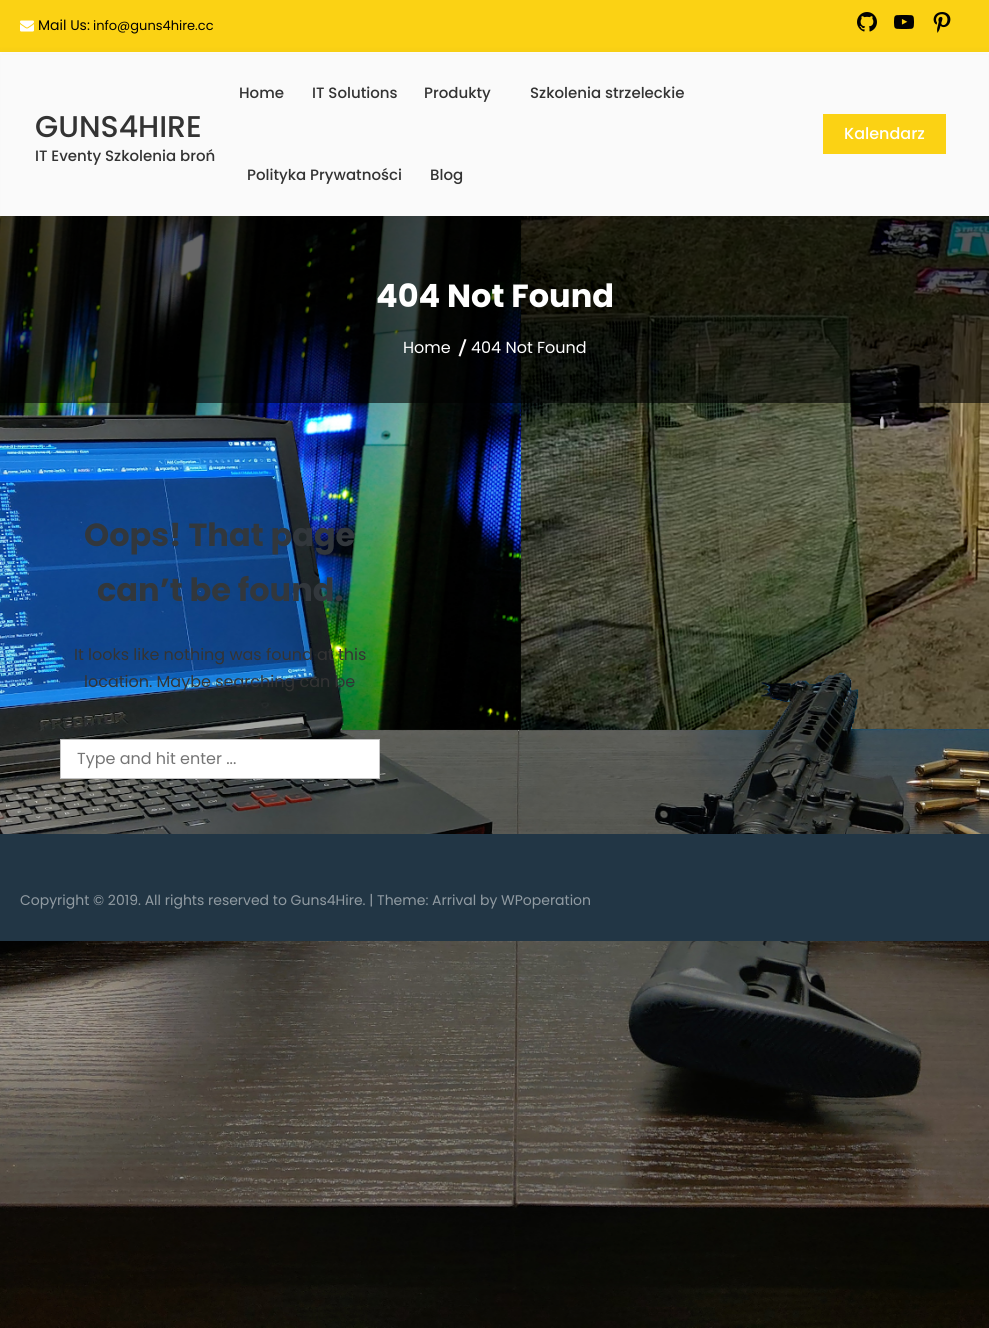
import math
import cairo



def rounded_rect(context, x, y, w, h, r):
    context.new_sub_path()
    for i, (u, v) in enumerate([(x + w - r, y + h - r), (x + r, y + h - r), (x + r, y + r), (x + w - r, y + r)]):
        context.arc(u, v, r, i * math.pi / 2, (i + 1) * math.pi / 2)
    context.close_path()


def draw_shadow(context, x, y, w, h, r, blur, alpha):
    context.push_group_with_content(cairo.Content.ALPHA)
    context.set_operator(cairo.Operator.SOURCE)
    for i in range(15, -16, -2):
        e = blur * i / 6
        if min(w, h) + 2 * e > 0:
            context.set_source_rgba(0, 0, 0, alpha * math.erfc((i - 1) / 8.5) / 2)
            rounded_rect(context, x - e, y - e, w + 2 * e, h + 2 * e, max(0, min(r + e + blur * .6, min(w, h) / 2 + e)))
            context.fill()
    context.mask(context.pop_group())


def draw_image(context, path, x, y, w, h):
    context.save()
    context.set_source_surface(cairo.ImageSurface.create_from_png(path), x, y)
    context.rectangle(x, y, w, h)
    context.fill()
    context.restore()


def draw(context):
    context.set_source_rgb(1, 1, 1)
    context.paint()
    draw_image(context, "images/1.png", 0, 216, 989, 1112)
    context.set_source_rgb(251 / 255, 210 / 255, 20 / 255)
    context.rectangle(0, 0, 989, 52)
    context.fill()
    draw_image(context, "images/2.png", 20, 20, 14, 12)
    draw_image(context, "images/3.png", 857, 12, 20, 20)
    draw_image(context, "images/4.png", 894, 15, 20, 14)
    draw_image(context, "images/5.png", 933, 12, 18, 21)
    context.set_source_rgb(0, 0, 0)
    draw_shadow(context, 0, 54, 989, 164, 0, 5, 0.05)
    context.set_source_rgb(250 / 255, 250 / 255, 250 / 255)
    context.rectangle(1, 55, 987, 161)
    context.fill()
    context.set_source_rgb(251 / 255, 210 / 255, 20 / 255)
    context.rectangle(823, 114, 123, 40)
    context.fill()
    context.set_source_rgba(0, 0, 0, 0.6)
    context.rectangle(0, 216, 989, 187)
    context.fill()
    context.set_source_rgb(1, 252 / 255, 252 / 255)
    context.new_path()
    context.move_to(464.5, 339)
    context.line_to(466.5, 339.5)
    context.line_to(460.5, 356.5)
    context.line_to(458.5, 356)
    context.close_path()
    context.fill()
    context.set_source_rgb(1, 1, 1)
    context.rectangle(60.5, 739.5, 319, 39)
    context.fill_preserve()
    context.set_source_rgb(195 / 255, 195 / 255, 195 / 255)
    context.set_line_width(1)
    context.stroke()
    context.set_source_rgb(34 / 255, 54 / 255, 69 / 255)
    context.rectangle(0, 834, 989, 107)
    context.fill()
    context.select_font_face("Poppins")
    context.set_font_size(14)
    context.set_source_rgb(2 / 255, 2 / 255, 2 / 255)
    context.move_to(38, 30)
    context.show_text("Mail Us:")
    context.set_font_size(13)
    context.move_to(93, 30)
    context.show_text("info@guns4hire.cc")
    context.select_font_face("Poppins Medium")
    context.set_font_size(30)
    context.set_source_rgb(51 / 255, 51 / 255, 51 / 255)
    context.move_to(35, 137)
    context.show_text("GUNS4HIRE")
    context.set_font_size(15)
    context.move_to(35, 161)
    context.show_text("IT Eventy Szkolenia broń")
    context.move_to(239, 98)
    context.show_text("Home")
    context.move_to(312, 98)
    context.show_text("IT Solutions")
    context.move_to(424, 98)
    context.show_text("Produkty")
    context.move_to(530, 98)
    context.show_text("Szkolenia strzeleckie")
    context.move_to(247, 180)
    context.show_text("Polityka Prywatności")
    context.move_to(430, 180)
    context.show_text("Blog")
    context.set_font_size(16)
    context.set_source_rgb(1, 1, 1)
    context.move_to(844, 139)
    context.show_text("Kalendarz")
    context.select_font_face("Poppins", cairo.FontSlant.NORMAL, cairo.FontWeight.BOLD)
    context.set_font_size(32)
    context.move_to(376, 307)
    context.show_text("404 Not Found")
    context.select_font_face("Poppins")
    context.set_font_size(16)
    context.move_to(403, 353)
    context.show_text("Home")
    context.move_to(471, 353)
    context.show_text("404 Not Found")
    context.select_font_face("Poppins", cairo.FontSlant.NORMAL, cairo.FontWeight.BOLD)
    context.set_font_size(32)
    context.set_source_rgb(50 / 255, 55 / 255, 60 / 255)
    context.move_to(84, 546)
    context.show_text("Oops! That page")
    context.move_to(97, 601)
    context.show_text("can’t be found.")
    context.select_font_face("Poppins")
    context.set_font_size(16)
    context.set_source_rgb(51 / 255, 51 / 255, 51 / 255)
    context.move_to(74, 660)
    context.show_text("It looks like nothing was found at this")
    context.move_to(84, 687)
    context.show_text("location. Maybe searching can be")
    context.set_source_rgb(117 / 255, 117 / 255, 117 / 255)
    context.move_to(77, 764)
    context.show_text("Type and hit enter ...")
    context.set_font_size(14)
    context.set_source_rgb(145 / 255, 155 / 255, 162 / 255)
    context.move_to(20, 905)
    context.show_text("Copyright © 2019. All rights reserved to Guns4Hire. | Theme: Arrival by WPoperation")


surface = cairo.ImageSurface(cairo.Format.RGB24, 989, 1328)
context = cairo.Context(surface)
options = cairo.FontOptions()
options.set_hint_metrics(cairo.HintMetrics.OFF)
options.set_hint_style(cairo.HintStyle.NONE)
context.set_font_options(options)
context.set_miter_limit(4)
draw(context)
surface.write_to_png("out.png")
